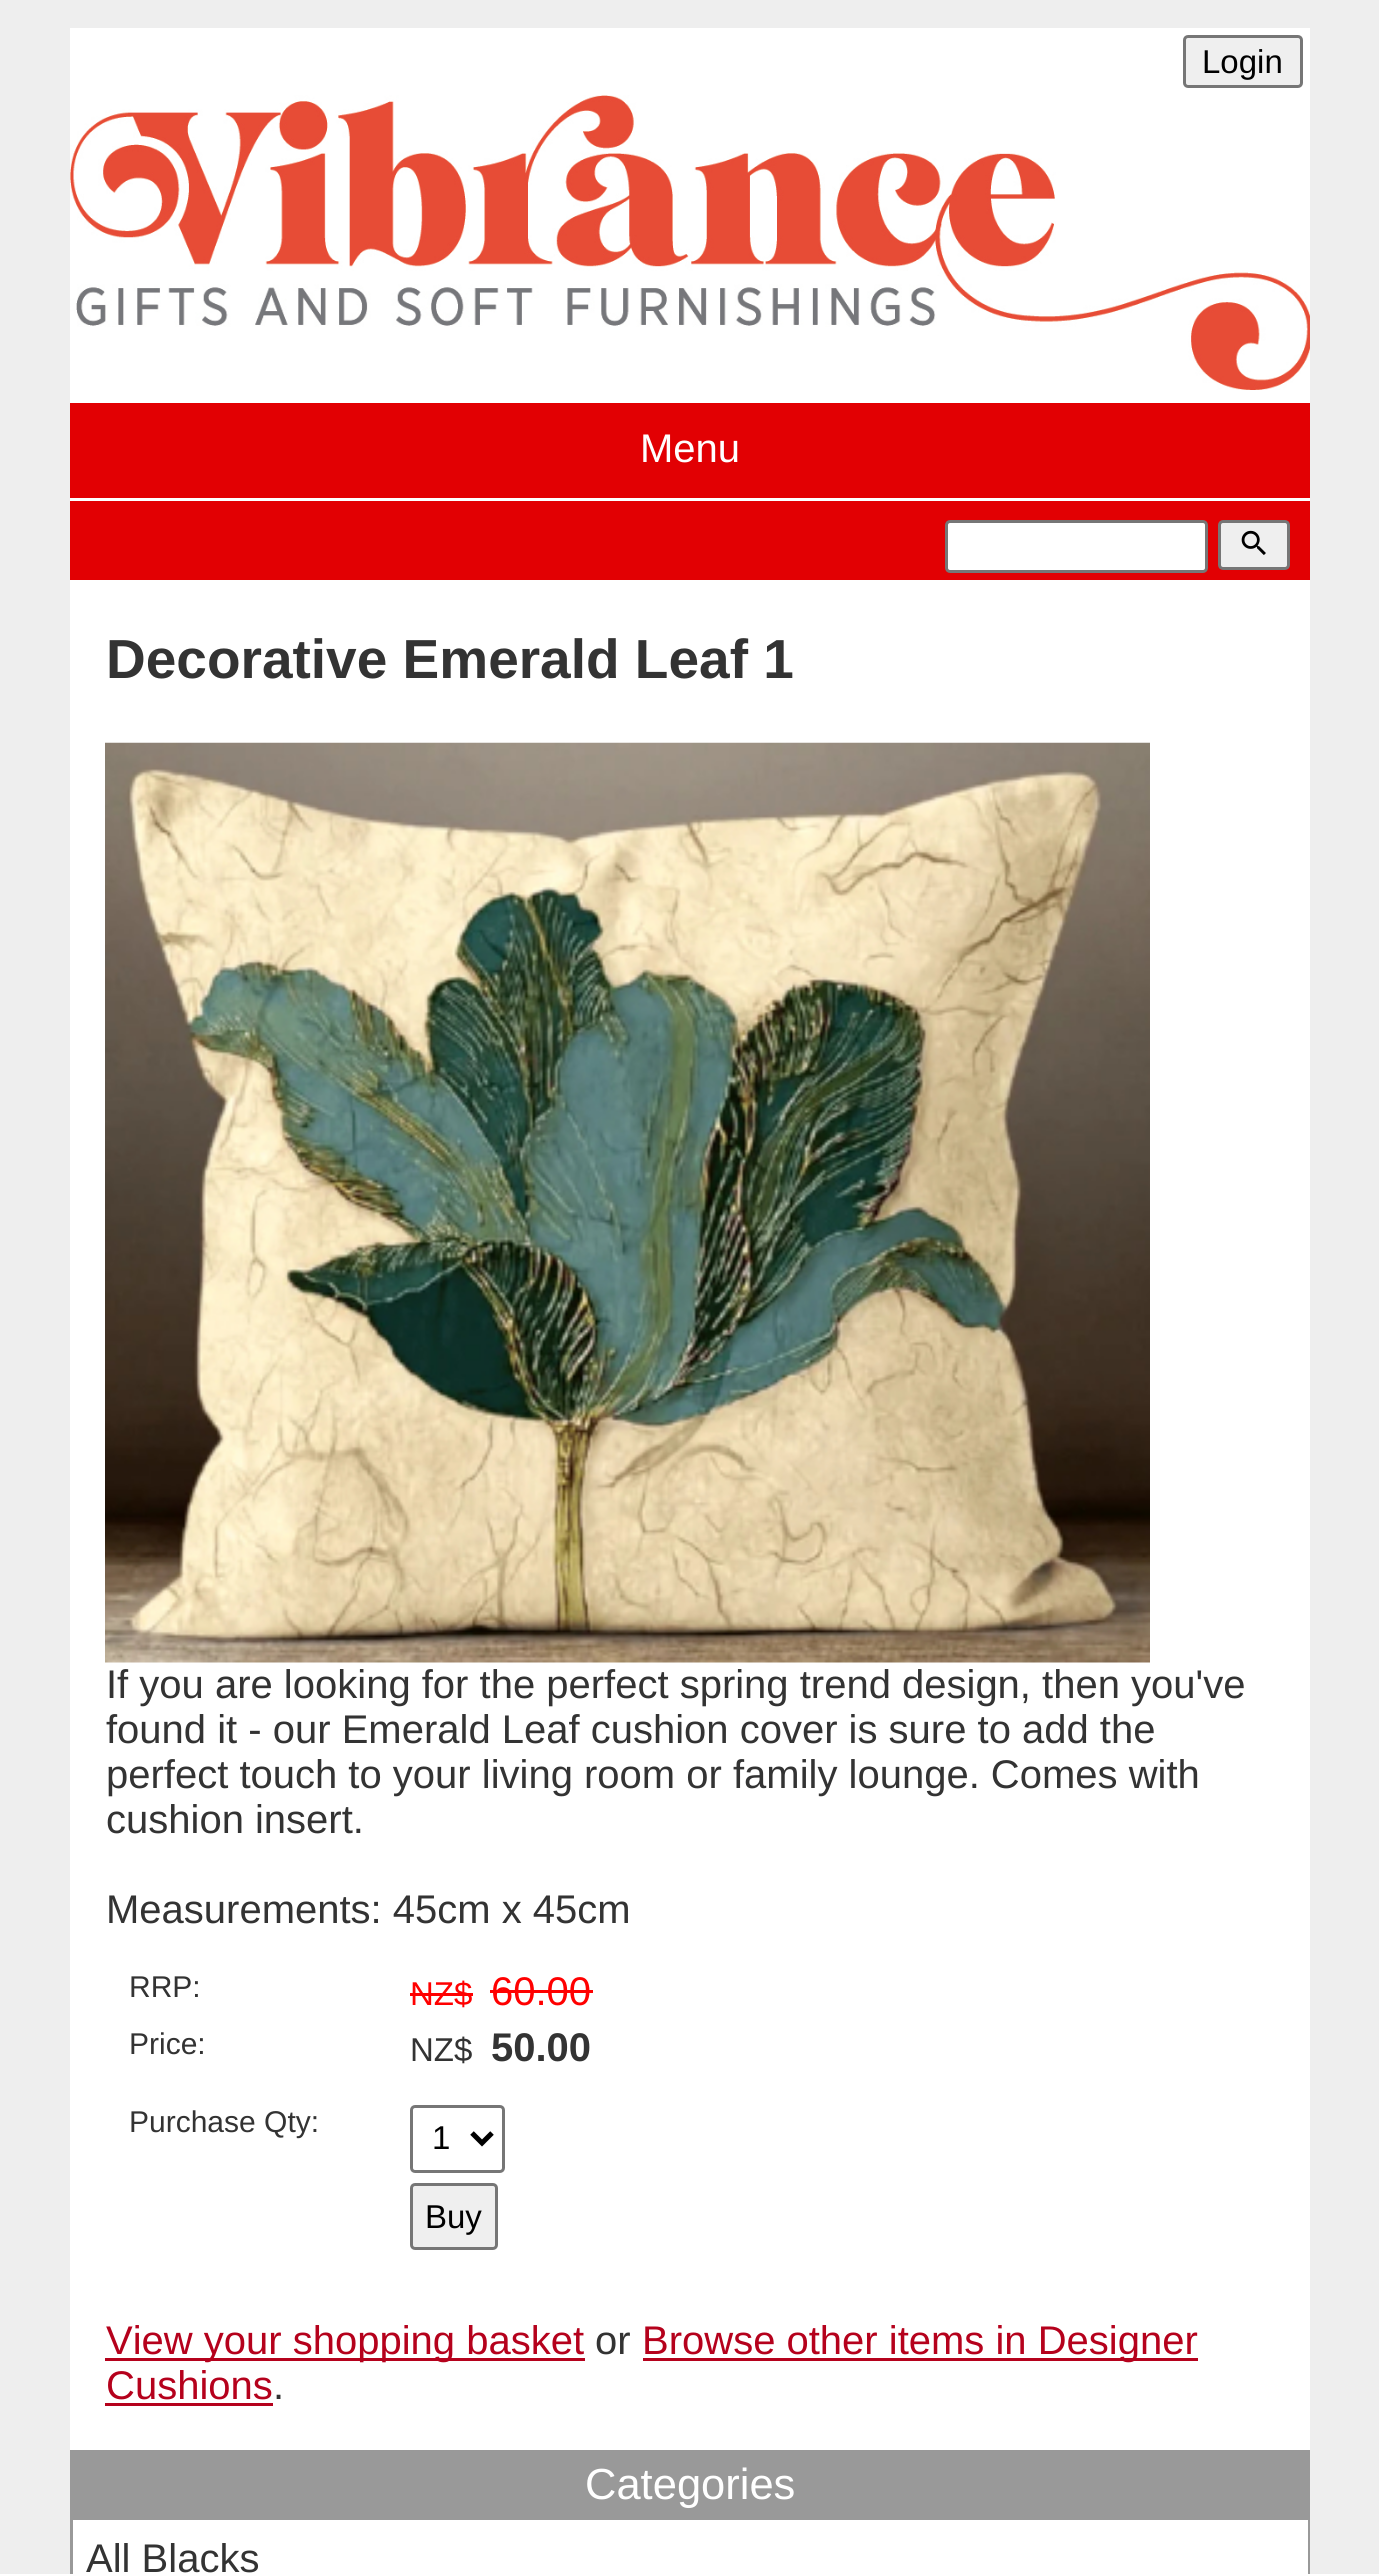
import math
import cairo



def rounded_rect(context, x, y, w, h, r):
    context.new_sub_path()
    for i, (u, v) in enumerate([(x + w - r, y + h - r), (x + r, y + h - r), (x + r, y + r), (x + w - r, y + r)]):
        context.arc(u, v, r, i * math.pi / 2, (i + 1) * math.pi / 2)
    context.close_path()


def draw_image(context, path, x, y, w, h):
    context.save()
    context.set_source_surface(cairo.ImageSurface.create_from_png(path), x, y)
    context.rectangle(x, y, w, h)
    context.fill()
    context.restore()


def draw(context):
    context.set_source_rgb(238 / 255, 238 / 255, 238 / 255)
    context.paint()
    context.set_source_rgb(1, 1, 1)
    context.rectangle(70, 28, 1240, 2422)
    context.fill()
    context.set_source_rgb(239 / 255, 239 / 255, 239 / 255)
    rounded_rect(context, 1184.5, 36.5, 117, 50, 3.5)
    context.fill_preserve()
    context.set_source_rgb(118 / 255, 118 / 255, 118 / 255)
    context.set_line_width(3)
    context.stroke()
    draw_image(context, "images/1.png", 70, 95, 1240, 295)
    context.set_source_rgb(226 / 255, 0, 3 / 255)
    context.rectangle(70, 403, 1240, 177)
    context.fill()
    context.set_source_rgb(1, 1, 1)
    context.rectangle(70, 498, 1240, 3)
    context.fill()
    rounded_rect(context, 946.5, 521.5, 260, 50, 3.5)
    context.fill_preserve()
    context.set_source_rgb(118 / 255, 118 / 255, 118 / 255)
    context.stroke()
    context.set_source_rgb(239 / 255, 239 / 255, 239 / 255)
    rounded_rect(context, 1219.5, 521.5, 69, 47, 3.5)
    context.fill_preserve()
    context.set_source_rgb(118 / 255, 118 / 255, 118 / 255)
    context.stroke()
    draw_image(context, "images/2.png", 1241, 530, 25, 25)
    draw_image(context, "images/3.png", 105, 742, 1045, 921)
    context.set_source_rgb(1, 0, 0)
    context.rectangle(410, 1993, 63, 3)
    context.fill()
    context.rectangle(490, 1990, 103, 3)
    context.fill()
    rounded_rect(context, 411.5, 2106.5, 92, 65, 3.5)
    context.set_source_rgb(118 / 255, 118 / 255, 118 / 255)
    context.stroke()
    context.new_path()
    context.move_to(472, 2133)
    context.line_to(482, 2143)
    context.line_to(492, 2133)
    context.set_source_rgb(0, 0, 0)
    context.set_line_width(5)
    context.stroke()
    context.set_source_rgb(239 / 255, 239 / 255, 239 / 255)
    rounded_rect(context, 411.5, 2184.5, 85, 64, 3.5)
    context.fill_preserve()
    context.set_source_rgb(118 / 255, 118 / 255, 118 / 255)
    context.set_line_width(3)
    context.stroke()
    context.set_source_rgb(181 / 255, 1 / 255, 28 / 255)
    context.rectangle(105, 2358, 480, 3)
    context.fill()
    context.rectangle(643, 2358, 555, 3)
    context.fill()
    context.rectangle(105, 2403, 168, 3)
    context.fill()
    context.rectangle(71.5, 2451.5, 1237, 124)
    context.set_source_rgb(153 / 255, 153 / 255, 153 / 255)
    context.stroke()
    context.rectangle(73, 2453, 1234, 67)
    context.fill()
    context.set_source_rgb(1, 1, 1)
    context.rectangle(73, 2520, 1235, 54)
    context.fill()
    context.select_font_face("Liberation Sans")
    context.set_font_size(33)
    context.set_source_rgb(0, 0, 0)
    context.move_to(1202, 73)
    context.show_text("Login")
    context.set_font_size(40)
    context.set_source_rgb(1, 1, 1)
    context.move_to(640, 462)
    context.show_text("Menu")
    context.select_font_face("Liberation Sans", cairo.FontSlant.NORMAL, cairo.FontWeight.BOLD)
    context.set_font_size(55)
    context.set_source_rgb(51 / 255, 51 / 255, 51 / 255)
    context.move_to(106, 678)
    context.show_text("Decorative Emerald Leaf 1")
    context.select_font_face("Liberation Sans")
    context.set_font_size(40)
    context.move_to(106, 1698)
    context.show_text("If you are looking for the perfect spring trend design, then you've")
    context.move_to(106, 1743)
    context.show_text("found it - our Emerald Leaf cushion cover is sure to add the")
    context.move_to(106, 1788)
    context.show_text("perfect touch to your living room or family lounge. Comes with")
    context.move_to(106, 1833)
    context.show_text("cushion insert.")
    context.move_to(106, 1923)
    context.show_text("Measurements: 45cm x 45cm")
    context.set_font_size(30)
    context.move_to(129, 1997)
    context.show_text("RRP:")
    context.set_font_size(33)
    context.set_source_rgb(1, 0, 0)
    context.move_to(410, 2005)
    context.show_text("NZ$")
    context.set_font_size(40)
    context.move_to(491, 2005)
    context.show_text("60.00")
    context.set_font_size(30)
    context.set_source_rgb(51 / 255, 51 / 255, 51 / 255)
    context.move_to(129, 2054)
    context.show_text("Price:")
    context.set_font_size(33)
    context.move_to(410, 2061)
    context.show_text("NZ$")
    context.select_font_face("Liberation Sans", cairo.FontSlant.NORMAL, cairo.FontWeight.BOLD)
    context.set_font_size(40)
    context.move_to(491, 2061)
    context.show_text("50.00")
    context.select_font_face("Liberation Sans")
    context.set_font_size(30)
    context.move_to(129, 2132)
    context.show_text("Purchase Qty:")
    context.set_font_size(33)
    context.set_source_rgb(0, 0, 0)
    context.move_to(432, 2149)
    context.show_text("1")
    context.move_to(425, 2228)
    context.show_text("Buy")
    context.set_font_size(40)
    context.set_source_rgb(181 / 255, 1 / 255, 28 / 255)
    context.move_to(106, 2354)
    context.show_text("View your shopping basket")
    context.set_source_rgb(51 / 255, 51 / 255, 51 / 255)
    context.move_to(595, 2354)
    context.show_text("or")
    context.set_source_rgb(181 / 255, 1 / 255, 28 / 255)
    context.move_to(642, 2354)
    context.show_text("Browse other items in Designer")
    context.move_to(106, 2399)
    context.show_text("Cushions")
    context.set_source_rgb(51 / 255, 51 / 255, 51 / 255)
    context.move_to(273, 2399)
    context.show_text(".")
    context.set_font_size(43.5)
    context.set_source_rgb(1, 1, 1)
    context.move_to(585, 2499)
    context.show_text("Categories")
    context.set_font_size(40)
    context.set_source_rgb(51 / 255, 51 / 255, 51 / 255)
    context.move_to(86, 2572)
    context.show_text("All Blacks")


surface = cairo.ImageSurface(cairo.Format.RGB24, 1379, 2574)
context = cairo.Context(surface)
options = cairo.FontOptions()
options.set_hint_metrics(cairo.HintMetrics.OFF)
options.set_hint_style(cairo.HintStyle.NONE)
context.set_font_options(options)
context.set_miter_limit(4)
draw(context)
surface.write_to_png("out.png")
